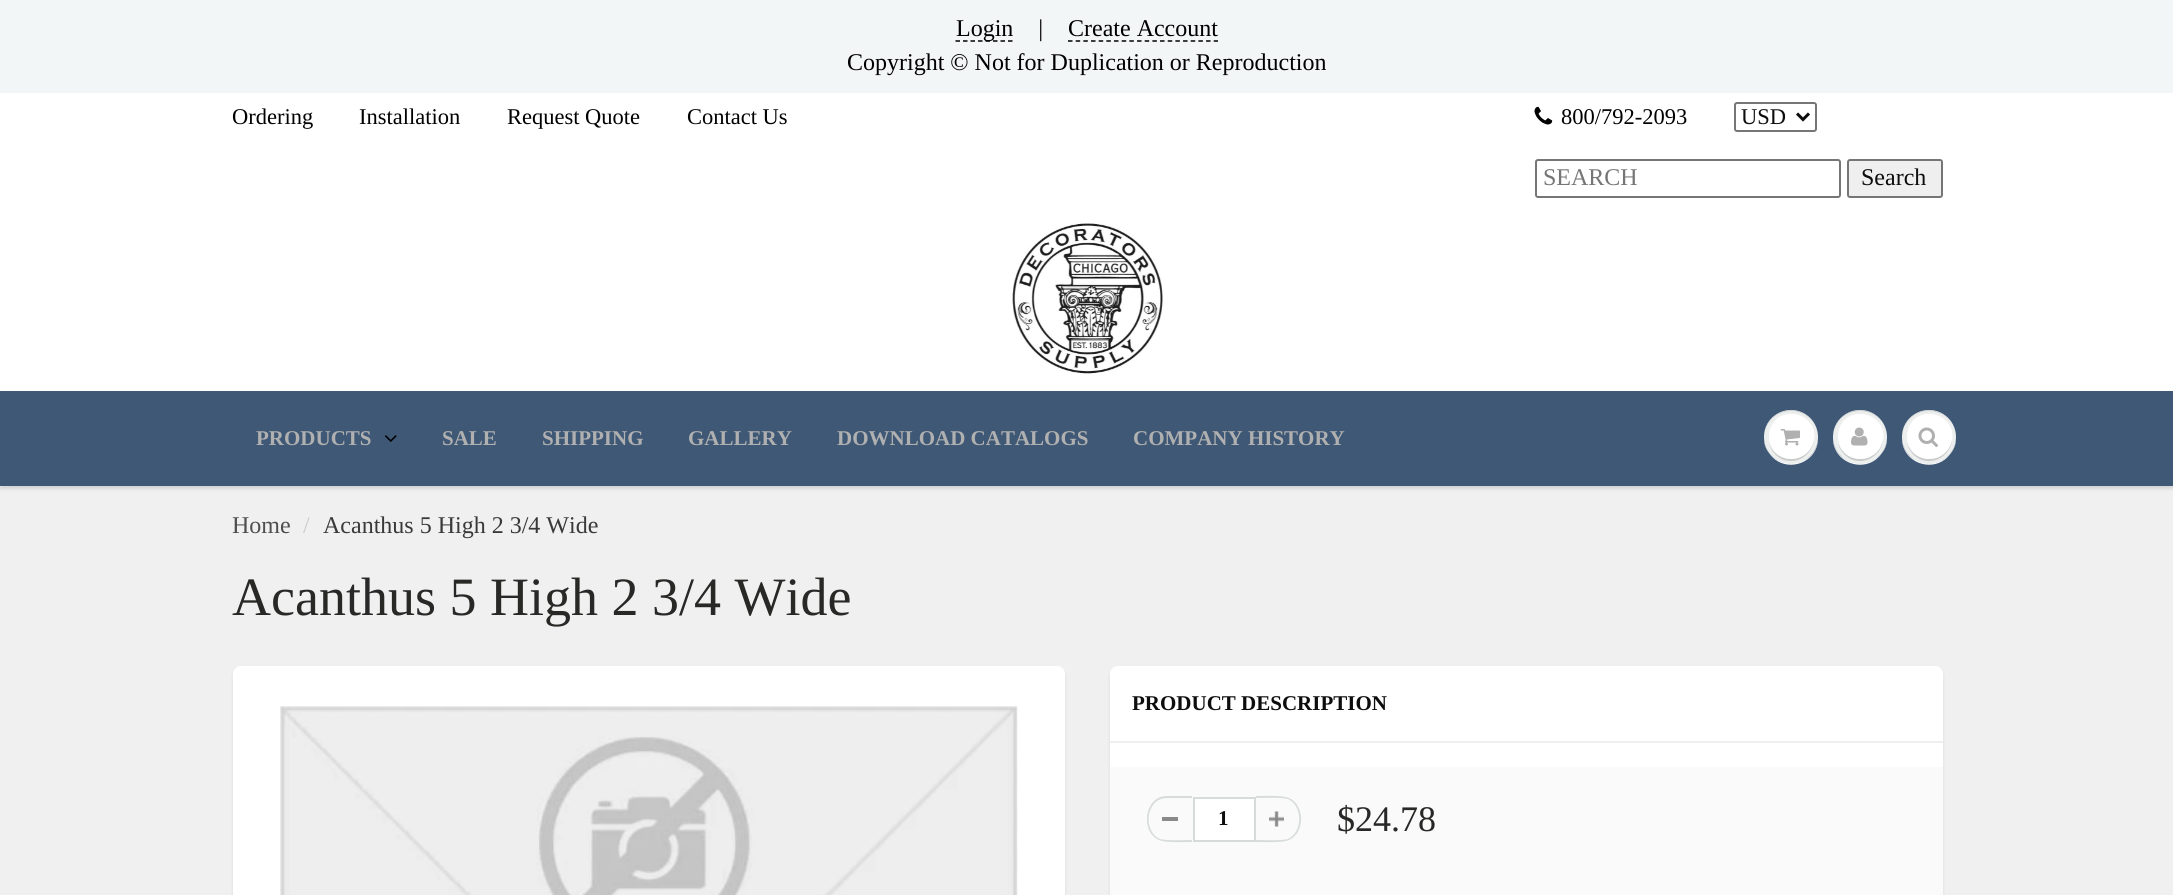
import math
import cairo



def rounded_rect(context, x, y, w, h, r):
    context.new_sub_path()
    for i, (u, v) in enumerate([(x + w - r, y + h - r), (x + r, y + h - r), (x + r, y + r), (x + w - r, y + r)]):
        context.arc(u, v, r, i * math.pi / 2, (i + 1) * math.pi / 2)
    context.close_path()


def draw_shadow(context, x, y, w, h, r, blur, alpha):
    context.push_group_with_content(cairo.Content.ALPHA)
    context.set_operator(cairo.Operator.SOURCE)
    for i in range(15, -16, -2):
        e = blur * i / 6
        if min(w, h) + 2 * e > 0:
            context.set_source_rgba(0, 0, 0, alpha * math.erfc((i - 1) / 8.5) / 2)
            rounded_rect(context, x - e, y - e, w + 2 * e, h + 2 * e, max(0, min(r + e + blur * .6, min(w, h) / 2 + e)))
            context.fill()
    context.mask(context.pop_group())


def draw_image(context, path, x, y, w, h):
    context.save()
    context.set_source_surface(cairo.ImageSurface.create_from_png(path), x, y)
    context.rectangle(x, y, w, h)
    context.fill()
    context.restore()


def draw(context):
    context.set_source_rgb(1, 1, 1)
    context.paint()
    context.set_source_rgb(243 / 255, 246 / 255, 247 / 255)
    context.rectangle(0, 0, 2173, 93)
    context.fill()
    context.new_path()
    context.move_to(955.5, 41)
    context.line_to(1012.5, 41)
    context.set_source_rgb(0, 0, 0)
    context.set_line_width(1.5)
    context.set_dash([4.5, 3])
    context.stroke()
    context.new_path()
    context.move_to(1068, 41)
    context.line_to(1218, 41)
    context.set_dash([4.5, 3.17])
    context.stroke()
    draw_image(context, "images/1.png", 1534, 106, 19, 19)
    rounded_rect(context, 1735, 103, 81, 28, 2)
    context.set_source_rgb(118 / 255, 118 / 255, 118 / 255)
    context.set_line_width(2)
    context.set_dash([])
    context.stroke()
    context.new_path()
    context.move_to(1797, 113.5)
    context.line_to(1803, 119.5)
    context.line_to(1809, 113.5)
    context.set_source_rgb(13 / 255, 13 / 255, 13 / 255)
    context.set_line_width(3)
    context.stroke()
    rounded_rect(context, 1536, 160, 304, 37, 2)
    context.set_source_rgb(118 / 255, 118 / 255, 118 / 255)
    context.set_line_width(2)
    context.stroke()
    context.set_source_rgb(239 / 255, 239 / 255, 239 / 255)
    rounded_rect(context, 1848, 160, 94, 37, 2)
    context.fill_preserve()
    context.set_source_rgb(118 / 255, 118 / 255, 118 / 255)
    context.stroke()
    draw_image(context, "images/2.png", 1012, 223, 151, 151)
    context.set_source_rgb(240 / 255, 240 / 255, 240 / 255)
    context.rectangle(0, 486, 2173, 409)
    context.fill()
    context.set_source_rgb(11 / 255, 25 / 255, 28 / 255)
    draw_shadow(context, 0, 392, 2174, 97, 0, 1.5, 0.12)
    context.set_source_rgb(62 / 255, 88 / 255, 118 / 255)
    context.rectangle(0, 391, 2173, 95)
    context.fill()
    context.set_source_rgb(1, 1, 1)
    context.rectangle(0, 390, 2173, 1)
    context.fill()
    draw_image(context, "images/3.png", 385, 435, 12, 7)
    context.new_path()
    context.move_to(1818, 437)
    context.curve_to(1817, 472, 1765, 472, 1764, 437)
    context.curve_to(1764, 443, 1765, 448, 1769, 453)
    context.curve_to(1784, 475, 1819, 464, 1818, 437)
    context.close_path()
    context.fill()
    context.set_source_rgb(237 / 255, 239 / 255, 239 / 255)
    context.arc(1791, 437, 27, 0, 2 * math.pi)
    context.fill()
    context.set_source_rgb(201 / 255, 203 / 255, 203 / 255)
    context.new_path()
    context.move_to(1791, 411)
    context.curve_to(1806, 411, 1818, 423, 1818, 437)
    context.curve_to(1818, 432, 1816, 426, 1813, 422)
    context.curve_to(1798, 400, 1764, 411, 1764, 437)
    context.curve_to(1764, 423, 1776, 411, 1791, 411)
    context.close_path()
    context.fill()
    context.new_path()
    context.move_to(1769, 443)
    context.curve_to(1770, 448, 1773, 453, 1777, 456)
    context.curve_to(1794, 470, 1819, 453, 1813, 432)
    context.curve_to(1819, 460, 1778, 470, 1769, 443)
    context.close_path()
    context.fill()
    context.set_source_rgb(1, 1, 1)
    context.arc(1791.5, 436.5, 22.5, 0, 2 * math.pi)
    context.fill()
    context.new_path()
    context.move_to(1791, 416)
    context.curve_to(1809, 416, 1816, 431, 1813, 444)
    context.curve_to(1823, 415, 1778, 401, 1770, 430)
    context.curve_to(1773, 422, 1780, 416, 1791, 416)
    context.close_path()
    context.fill()
    draw_image(context, "images/4.png", 1780, 429, 20, 17)
    context.new_path()
    context.move_to(1887, 437)
    context.curve_to(1886, 472, 1834, 472, 1833, 437)
    context.curve_to(1832, 464, 1867, 475, 1882, 453)
    context.curve_to(1886, 448, 1887, 443, 1887, 437)
    context.close_path()
    context.fill()
    context.set_source_rgb(237 / 255, 239 / 255, 239 / 255)
    context.arc(1860, 437, 27, 0, 2 * math.pi)
    context.fill()
    context.set_source_rgb(201 / 255, 203 / 255, 203 / 255)
    context.new_path()
    context.move_to(1860, 411)
    context.curve_to(1875, 411, 1887, 423, 1887, 437)
    context.curve_to(1887, 432, 1885, 426, 1882, 422)
    context.curve_to(1867, 400, 1833, 411, 1833, 437)
    context.curve_to(1833, 423, 1845, 411, 1860, 411)
    context.close_path()
    context.fill()
    context.new_path()
    context.move_to(1838, 443)
    context.curve_to(1839, 448, 1842, 453, 1846, 456)
    context.curve_to(1863, 470, 1888, 453, 1882, 432)
    context.curve_to(1888, 460, 1847, 470, 1838, 443)
    context.close_path()
    context.fill()
    context.set_source_rgb(1, 1, 1)
    context.arc(1860.5, 436.5, 22.5, 0, 2 * math.pi)
    context.fill()
    context.new_path()
    context.move_to(1860, 416)
    context.curve_to(1878, 416, 1885, 431, 1882, 444)
    context.curve_to(1892, 415, 1847, 401, 1839, 430)
    context.curve_to(1842, 422, 1849, 416, 1860, 416)
    context.close_path()
    context.fill()
    draw_image(context, "images/5.png", 1851, 427, 17, 19)
    context.new_path()
    context.move_to(1956, 437)
    context.curve_to(1955, 472, 1903, 472, 1902, 437)
    context.curve_to(1901, 464, 1936, 475, 1951, 453)
    context.curve_to(1955, 448, 1956, 443, 1956, 437)
    context.close_path()
    context.fill()
    context.set_source_rgb(237 / 255, 239 / 255, 239 / 255)
    context.arc(1929, 437, 27, 0, 2 * math.pi)
    context.fill()
    context.set_source_rgb(201 / 255, 203 / 255, 203 / 255)
    context.new_path()
    context.move_to(1929, 411)
    context.curve_to(1944, 411, 1956, 423, 1956, 437)
    context.curve_to(1956, 432, 1954, 426, 1951, 422)
    context.curve_to(1936, 400, 1902, 411, 1902, 437)
    context.curve_to(1902, 423, 1914, 411, 1929, 411)
    context.close_path()
    context.fill()
    context.new_path()
    context.move_to(1907, 443)
    context.curve_to(1908, 448, 1911, 453, 1915, 456)
    context.curve_to(1932, 470, 1957, 453, 1951, 432)
    context.curve_to(1957, 460, 1916, 470, 1907, 443)
    context.close_path()
    context.fill()
    context.set_source_rgb(1, 1, 1)
    context.arc(1929.5, 436.5, 22.5, 0, 2 * math.pi)
    context.fill()
    context.new_path()
    context.move_to(1929, 416)
    context.curve_to(1947, 416, 1954, 431, 1951, 444)
    context.curve_to(1961, 415, 1916, 401, 1908, 430)
    context.curve_to(1911, 422, 1918, 416, 1929, 416)
    context.close_path()
    context.fill()
    draw_image(context, "images/6.png", 1918, 427, 20, 20)
    context.set_source_rgb(11 / 255, 25 / 255, 28 / 255)
    draw_shadow(context, 233, 669, 832, 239, 8, 1.5, 0.1)
    context.set_source_rgb(1, 1, 1)
    rounded_rect(context, 233, 666, 832, 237, 8)
    context.fill()
    draw_image(context, "images/7.png", 280, 706, 738, 189)
    context.set_source_rgb(11 / 255, 25 / 255, 28 / 255)
    draw_shadow(context, 1110, 669, 833, 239, 8, 1.5, 0.1)
    context.set_source_rgb(1, 1, 1)
    rounded_rect(context, 1110, 666, 833, 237, 8)
    context.fill()
    context.set_source_rgb(239 / 255, 239 / 255, 239 / 255)
    context.rectangle(1110, 741, 833, 2)
    context.fill()
    context.set_source_rgb(250 / 255, 250 / 255, 250 / 255)
    context.rectangle(1110, 767, 833, 128)
    context.fill()
    context.set_source_rgb(137 / 255, 137 / 255, 137 / 255)
    context.rectangle(1162, 817, 16, 4)
    context.fill()
    context.set_source_rgb(215 / 255, 219 / 255, 219 / 255)
    context.set_fill_rule(cairo.FillRule.EVEN_ODD)
    context.new_path()
    context.move_to(1167, 796)
    context.line_to(1192, 796)
    context.line_to(1192, 842)
    context.curve_to(1184, 842, 1166, 843, 1159, 840)
    context.curve_to(1140, 832, 1144, 796, 1167, 796)
    context.close_path()
    context.move_to(1167, 798)
    context.line_to(1192, 798)
    context.line_to(1192, 840)
    context.curve_to(1185, 840, 1167, 841, 1160, 839)
    context.curve_to(1142, 831, 1146, 798, 1167, 798)
    context.close_path()
    context.fill()
    context.set_source_rgb(1, 1, 1)
    context.rectangle(1194, 798, 61, 43)
    context.fill_preserve()
    context.set_source_rgb(215 / 255, 219 / 255, 219 / 255)
    context.stroke()
    draw_image(context, "images/8.png", 1269, 811, 15, 16)
    context.new_path()
    context.move_to(1256, 796)
    context.curve_to(1264, 796, 1282, 795, 1289, 798)
    context.curve_to(1305, 805, 1305, 833, 1289, 840)
    context.curve_to(1282, 843, 1264, 842, 1256, 842)
    context.close_path()
    context.move_to(1256, 798)
    context.curve_to(1263, 798, 1281, 797, 1288, 799)
    context.curve_to(1303, 806, 1303, 832, 1288, 839)
    context.curve_to(1281, 841, 1263, 840, 1256, 840)
    context.close_path()
    context.fill()
    context.select_font_face("Liberation Serif")
    context.set_font_size(24)
    context.set_source_rgb(0, 0, 0)
    context.move_to(956, 36)
    context.show_text("Login")
    context.select_font_face("Liberation Serif", cairo.FontSlant.ITALIC)
    context.move_to(1037, 36)
    context.show_text("|")
    context.select_font_face("Liberation Serif")
    context.move_to(1068, 36)
    context.show_text("Create Account")
    context.move_to(847, 70)
    context.show_text("Copyright © Not for Duplication or Reproduction")
    context.set_font_size(22.5)
    context.move_to(232, 124)
    context.show_text("Ordering")
    context.move_to(359, 124)
    context.show_text("Installation")
    context.move_to(507, 124)
    context.show_text("Request Quote")
    context.move_to(687, 124)
    context.show_text("Contact Us")
    context.move_to(1561, 124)
    context.show_text("800/792-2093")
    context.set_source_rgb(13 / 255, 13 / 255, 13 / 255)
    context.move_to(1741, 124)
    context.show_text("USD")
    context.set_font_size(24)
    context.set_source_rgb(117 / 255, 117 / 255, 117 / 255)
    context.move_to(1543, 185)
    context.show_text("SEARCH")
    context.set_source_rgb(13 / 255, 13 / 255, 13 / 255)
    context.move_to(1861, 185)
    context.show_text("Search")
    context.select_font_face("Liberation Serif", cairo.FontSlant.NORMAL, cairo.FontWeight.BOLD)
    context.set_font_size(21)
    context.set_source_rgb(176 / 255, 176 / 255, 176 / 255)
    context.move_to(256, 445)
    context.show_text("PRODUCTS")
    context.move_to(442, 445)
    context.show_text("SALE")
    context.move_to(542, 445)
    context.show_text("SHIPPING")
    context.move_to(688, 445)
    context.show_text("GALLERY")
    context.move_to(837, 445)
    context.show_text("DOWNLOAD CATALOGS")
    context.move_to(1133, 445)
    context.show_text("COMPANY HISTORY")
    context.select_font_face("Liberation Serif")
    context.set_font_size(24)
    context.set_source_rgb(78 / 255, 78 / 255, 78 / 255)
    context.move_to(232, 533)
    context.show_text("Home")
    context.set_source_rgb(204 / 255, 204 / 255, 204 / 255)
    context.move_to(303, 533)
    context.show_text("/")
    context.set_source_rgb(57 / 255, 57 / 255, 57 / 255)
    context.move_to(323, 533)
    context.show_text("Acanthus 5 High 2 3/4 Wide")
    context.set_font_size(54)
    context.set_source_rgb(40 / 255, 40 / 255, 39 / 255)
    context.move_to(232, 615)
    context.show_text("Acanthus 5 High 2 3/4 Wide")
    context.select_font_face("Liberation Serif", cairo.FontSlant.NORMAL, cairo.FontWeight.BOLD)
    context.set_font_size(21)
    context.set_source_rgb(13 / 255, 13 / 255, 13 / 255)
    context.move_to(1132, 710)
    context.show_text("PRODUCT DESCRIPTION")
    context.move_to(1218, 825)
    context.show_text("1")
    context.select_font_face("Liberation Serif")
    context.set_font_size(36)
    context.set_source_rgb(40 / 255, 40 / 255, 39 / 255)
    context.move_to(1337, 831)
    context.show_text("$24.78")


surface = cairo.ImageSurface(cairo.Format.RGB24, 2173, 895)
context = cairo.Context(surface)
options = cairo.FontOptions()
options.set_hint_metrics(cairo.HintMetrics.OFF)
options.set_hint_style(cairo.HintStyle.NONE)
context.set_font_options(options)
context.set_miter_limit(4)
draw(context)
surface.write_to_png("out.png")
